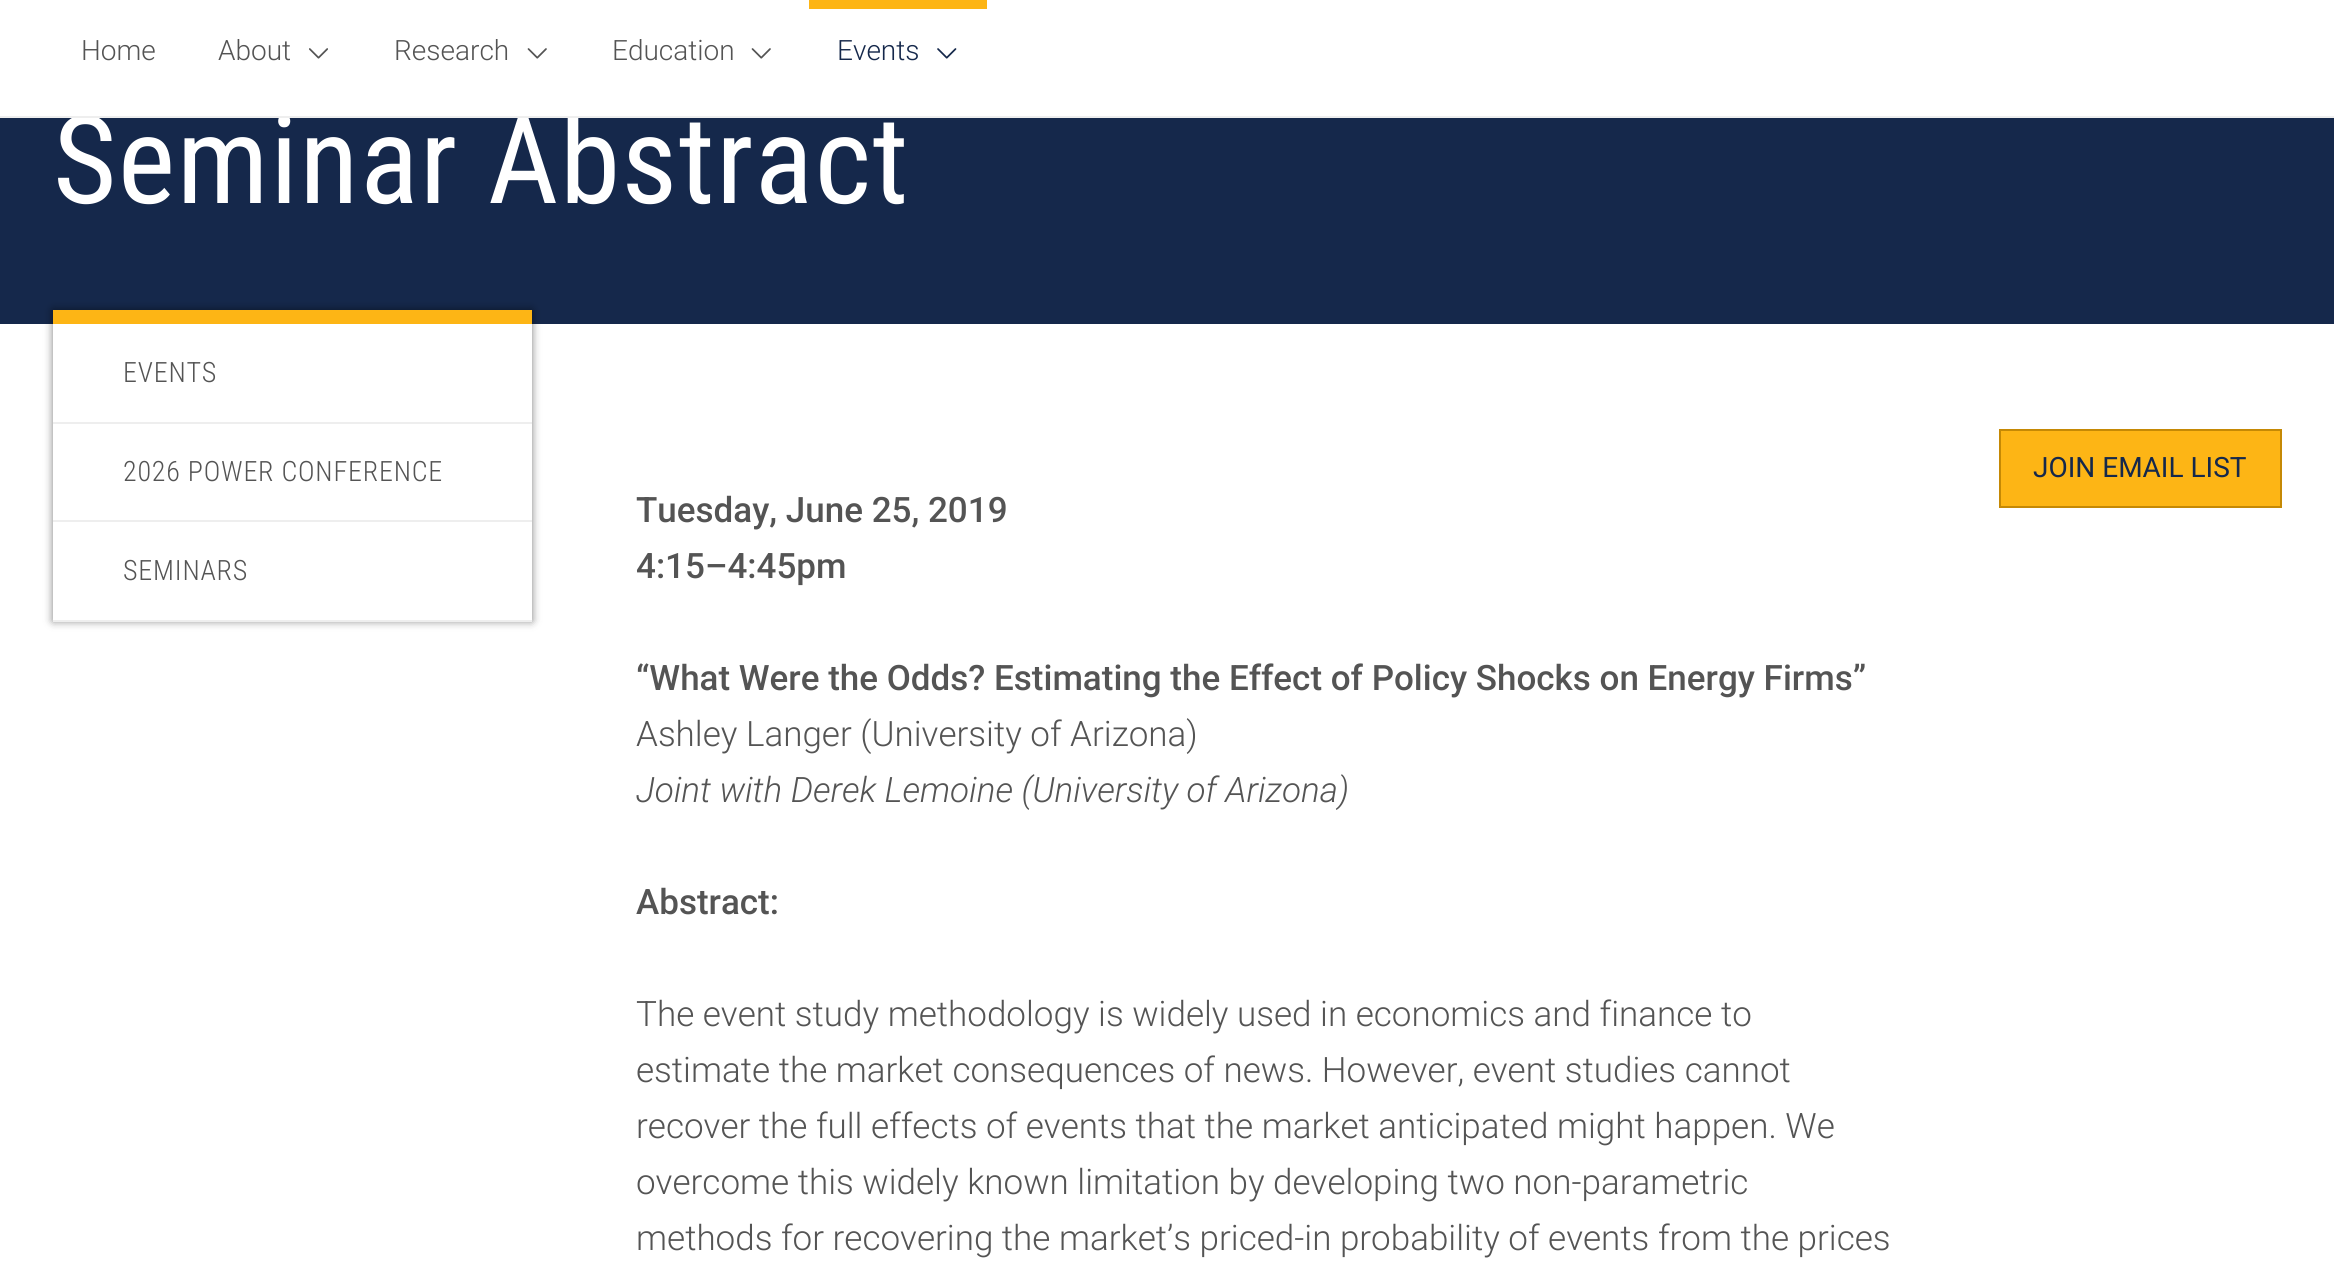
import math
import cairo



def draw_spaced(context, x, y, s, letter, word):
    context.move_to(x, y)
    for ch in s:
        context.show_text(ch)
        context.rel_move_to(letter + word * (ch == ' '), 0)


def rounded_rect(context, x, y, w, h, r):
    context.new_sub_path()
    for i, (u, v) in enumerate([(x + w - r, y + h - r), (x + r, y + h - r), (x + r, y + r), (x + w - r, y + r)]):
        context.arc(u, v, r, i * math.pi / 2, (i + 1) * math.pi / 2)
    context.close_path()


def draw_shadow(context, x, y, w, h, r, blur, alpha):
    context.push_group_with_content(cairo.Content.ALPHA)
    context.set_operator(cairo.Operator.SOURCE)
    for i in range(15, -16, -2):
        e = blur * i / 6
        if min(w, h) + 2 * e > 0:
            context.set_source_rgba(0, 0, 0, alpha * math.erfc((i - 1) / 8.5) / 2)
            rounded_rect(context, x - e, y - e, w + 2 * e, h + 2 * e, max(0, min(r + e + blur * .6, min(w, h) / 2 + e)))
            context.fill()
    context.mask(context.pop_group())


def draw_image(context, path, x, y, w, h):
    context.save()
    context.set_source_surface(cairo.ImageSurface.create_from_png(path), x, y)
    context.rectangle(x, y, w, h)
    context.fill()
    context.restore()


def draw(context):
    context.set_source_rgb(1, 1, 1)
    context.paint()
    draw_image(context, "images/1.png", 309, 48, 19, 11)
    draw_image(context, "images/2.png", 527, 48, 20, 11)
    draw_image(context, "images/2.png", 751, 48, 20, 11)
    context.set_source_rgb(253 / 255, 181 / 255, 21 / 255)
    context.rectangle(809, 0, 178, 9)
    context.fill()
    draw_image(context, "images/3.png", 937, 48, 20, 11)
    context.set_source_rgb(21 / 255, 40 / 255, 75 / 255)
    context.rectangle(0, 118, 2334, 206)
    context.fill()
    context.save()
    context.set_fill_rule(cairo.FillRule.EVEN_ODD)
    context.new_path()
    context.move_to(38, 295)
    context.line_to(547, 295)
    context.line_to(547, 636)
    context.line_to(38, 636)
    context.close_path()
    context.move_to(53, 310)
    context.line_to(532, 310)
    context.line_to(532, 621)
    context.line_to(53, 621)
    context.close_path()
    context.clip()
    context.set_source_rgb(0, 0, 0)
    draw_shadow(context, 53, 310, 479, 311, 0, 4.5, 0.5)
    context.restore()
    context.set_source_rgb(253 / 255, 181 / 255, 21 / 255)
    context.rectangle(53, 310, 479, 14)
    context.fill()
    context.set_source_rgb(238 / 255, 238 / 255, 238 / 255)
    context.rectangle(53, 422, 479, 2)
    context.fill()
    context.rectangle(53, 520, 479, 2)
    context.fill()
    context.rectangle(53, 620, 479, 2)
    context.fill()
    context.set_source_rgb(253 / 255, 181 / 255, 21 / 255)
    context.rectangle(2000, 430, 281, 77)
    context.fill_preserve()
    context.set_source_rgb(197 / 255, 137 / 255, 5 / 255)
    context.stroke()
    context.select_font_face("Roboto Light")
    context.set_font_size(28)
    context.set_source_rgb(84 / 255, 84 / 255, 84 / 255)
    context.move_to(81, 60)
    context.show_text("Home")
    context.move_to(218, 60)
    context.show_text("About")
    context.move_to(394, 60)
    context.show_text("Research")
    context.move_to(612, 60)
    context.show_text("Education")
    context.set_source_rgb(21 / 255, 40 / 255, 75 / 255)
    context.move_to(837, 60)
    context.show_text("Events")
    context.select_font_face("Roboto Condensed")
    context.set_font_size(122.5)
    context.set_source_rgb(1, 1, 1)
    draw_spaced(context, 53, 203, "Seminar Abstract", 1.25, 0)
    context.set_source_rgb(238 / 255, 238 / 255, 238 / 255)
    context.rectangle(0, 116, 2334, 2)
    context.fill()
    context.select_font_face("Roboto Condensed Light")
    context.set_font_size(28)
    context.set_source_rgb(84 / 255, 84 / 255, 84 / 255)
    draw_spaced(context, 123, 382, "EVENTS", 0.8, 0)
    draw_spaced(context, 123, 481, "2026 POWER CONFERENCE", 0.8, 0)
    draw_spaced(context, 123, 580, "SEMINARS", 0.8, 0)
    context.select_font_face("Roboto")
    context.set_source_rgb(21 / 255, 40 / 255, 75 / 255)
    context.move_to(2033, 477)
    context.show_text("JOIN EMAIL LIST")
    context.select_font_face("Roboto Medium")
    context.set_font_size(35)
    context.set_source_rgb(84 / 255, 84 / 255, 84 / 255)
    context.move_to(636, 522)
    context.show_text("Tuesday, June 25, 2019")
    context.move_to(636, 578)
    context.show_text("4:15–4:45pm")
    context.move_to(636, 690)
    context.show_text("“What Were the Odds? Estimating the Effect of Policy Shocks on Energy Firms”")
    context.select_font_face("Roboto Light")
    context.move_to(636, 746)
    context.show_text("Ashley Langer (University of Arizona)")
    context.select_font_face("Roboto Light", cairo.FontSlant.ITALIC)
    context.move_to(636, 802)
    context.show_text("Joint with Derek Lemoine (University of Arizona)")
    context.select_font_face("Roboto Medium")
    context.move_to(636, 914)
    context.show_text("Abstract:")
    context.select_font_face("Roboto Light")
    context.move_to(636, 1026)
    context.show_text("The event study methodology is widely used in economics and finance to")
    context.move_to(636, 1082)
    context.show_text("estimate the market consequences of news. However, event studies cannot")
    context.move_to(636, 1138)
    context.show_text("recover the full effects of events that the market anticipated might happen. We")
    context.move_to(636, 1194)
    context.show_text("overcome this widely known limitation by developing two non-parametric")
    context.move_to(636, 1250)
    context.show_text("methods for recovering the market’s priced-in probability of events from the prices")


surface = cairo.ImageSurface(cairo.Format.RGB24, 2334, 1286)
context = cairo.Context(surface)
options = cairo.FontOptions()
options.set_hint_metrics(cairo.HintMetrics.OFF)
options.set_hint_style(cairo.HintStyle.NONE)
context.set_font_options(options)
context.set_miter_limit(4)
draw(context)
surface.write_to_png("out.png")
